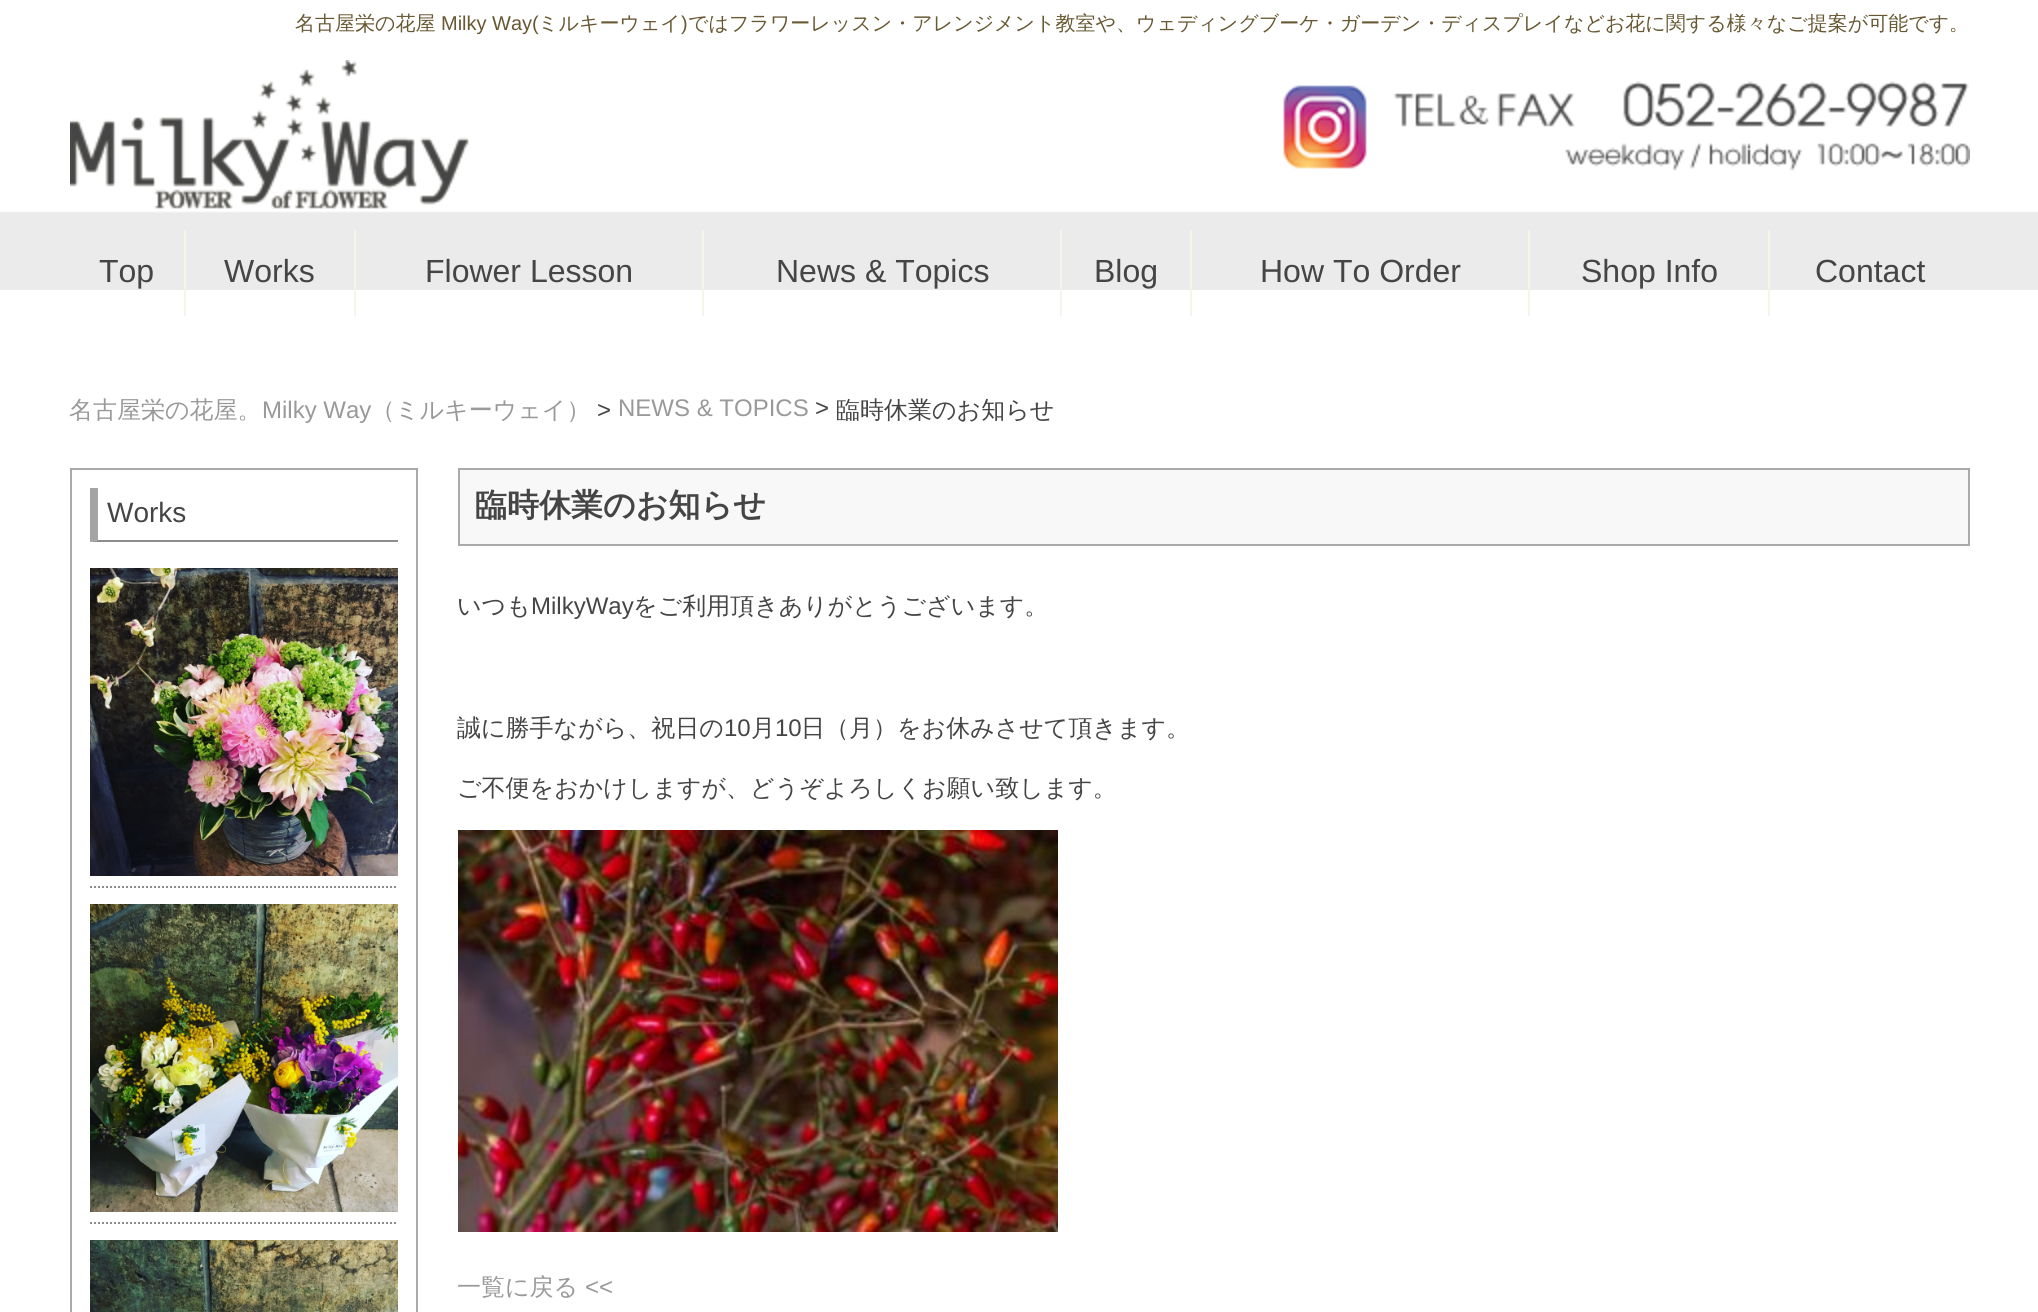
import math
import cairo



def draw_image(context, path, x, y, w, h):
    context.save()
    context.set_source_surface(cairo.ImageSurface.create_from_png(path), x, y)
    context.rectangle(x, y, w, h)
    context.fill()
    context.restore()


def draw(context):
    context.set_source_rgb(1, 1, 1)
    context.paint()
    draw_image(context, "images/1.png", 0, 211, 2038, 79)
    draw_image(context, "images/2.png", 70, 60, 399, 149)
    draw_image(context, "images/3.png", 1283, 85, 84, 84)
    draw_image(context, "images/4.png", 1393, 81, 577, 90)
    context.set_source_rgb(247 / 255, 243 / 255, 237 / 255)
    context.rectangle(184, 230, 2, 86)
    context.fill()
    context.rectangle(354, 230, 2, 86)
    context.fill()
    context.rectangle(702, 230, 2, 86)
    context.fill()
    context.rectangle(1060, 230, 2, 86)
    context.fill()
    context.rectangle(1190, 230, 2, 86)
    context.fill()
    context.rectangle(1528, 230, 2, 86)
    context.fill()
    context.rectangle(1768, 230, 2, 86)
    context.fill()
    context.rectangle(71, 469, 346, 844)
    context.set_source_rgb(170 / 255, 170 / 255, 170 / 255)
    context.stroke()
    context.set_source_rgb(141 / 255, 141 / 255, 141 / 255)
    context.new_path()
    context.move_to(398, 542)
    context.line_to(90, 542)
    context.line_to(98, 540)
    context.line_to(398, 540)
    context.close_path()
    context.fill()
    context.set_source_rgb(164 / 255, 164 / 255, 164 / 255)
    context.new_path()
    context.move_to(90, 542)
    context.line_to(90, 488)
    context.line_to(98, 488)
    context.line_to(98, 540)
    context.close_path()
    context.fill()
    context.new_path()
    context.move_to(90, 887)
    context.line_to(398, 887)
    context.set_source_rgb(141 / 255, 141 / 255, 141 / 255)
    context.set_dash([2, 2])
    context.stroke()
    draw_image(context, "images/5.png", 90, 568, 308, 308)
    context.new_path()
    context.move_to(90, 1223)
    context.line_to(398, 1223)
    context.stroke()
    draw_image(context, "images/6.png", 90, 904, 308, 308)
    draw_image(context, "images/7.png", 90, 1240, 308, 72)
    context.set_source_rgb(248 / 255, 248 / 255, 248 / 255)
    context.rectangle(459, 469, 1510, 76)
    context.fill_preserve()
    context.set_source_rgb(170 / 255, 170 / 255, 170 / 255)
    context.set_dash([])
    context.stroke()
    draw_image(context, "images/8.png", 458, 830, 600, 402)
    context.select_font_face("WenQuanYi Zen Hei Medium")
    context.set_font_size(20)
    context.set_source_rgb(103 / 255, 88 / 255, 50 / 255)
    context.move_to(295, 30)
    context.show_text("名古屋栄の花屋")
    context.select_font_face("Liberation Sans")
    context.move_to(441, 30)
    context.show_text("Milky Way(")
    context.select_font_face("WenQuanYi Zen Hei Medium")
    context.move_to(538, 30)
    context.show_text("ミルキーウェイ")
    context.select_font_face("Liberation Sans")
    context.move_to(681, 30)
    context.show_text(")")
    context.select_font_face("WenQuanYi Zen Hei Medium")
    context.move_to(688, 30)
    context.show_text("ではフラワーレッスン・アレンジメント教室や、ウェディングブーケ・ガーデン・ディスプレイなどお花に関する様々なご提案が可能です。")
    context.select_font_face("Liberation Sans")
    context.set_font_size(32)
    context.set_source_rgb(69 / 255, 69 / 255, 69 / 255)
    context.move_to(99, 282)
    context.show_text("Top")
    context.move_to(224, 282)
    context.show_text("Works")
    context.move_to(425, 282)
    context.show_text("Flower Lesson")
    context.move_to(776, 282)
    context.show_text("News & Topics")
    context.move_to(1094, 282)
    context.show_text("Blog")
    context.move_to(1260, 282)
    context.show_text("How To Order")
    context.move_to(1581, 282)
    context.show_text("Shop Info")
    context.move_to(1815, 282)
    context.show_text("Contact")
    context.select_font_face("WenQuanYi Zen Hei Medium")
    context.set_font_size(24)
    context.set_source_rgb(153 / 255, 153 / 255, 153 / 255)
    context.move_to(69, 418)
    context.show_text("名古屋栄の花屋。")
    context.select_font_face("Liberation Sans")
    context.move_to(262, 418)
    context.show_text("Milky Way")
    context.select_font_face("WenQuanYi Zen Hei Medium")
    context.move_to(371, 418)
    context.show_text("（ミルキーウェイ）")
    context.select_font_face("Liberation Sans")
    context.set_source_rgb(69 / 255, 69 / 255, 69 / 255)
    context.move_to(597, 418)
    context.show_text(">")
    context.set_source_rgb(153 / 255, 153 / 255, 153 / 255)
    context.move_to(618, 416)
    context.show_text("NEWS & TOPICS")
    context.set_source_rgb(69 / 255, 69 / 255, 69 / 255)
    context.move_to(815, 416)
    context.show_text(">")
    context.select_font_face("WenQuanYi Zen Hei Medium")
    context.move_to(836, 418)
    context.show_text("臨時休業のお知らせ")
    context.select_font_face("Liberation Sans")
    context.set_font_size(28)
    context.move_to(107, 522)
    context.show_text("Works")
    context.select_font_face("WenQuanYi Zen Hei", cairo.FontSlant.NORMAL, cairo.FontWeight.BOLD)
    context.set_font_size(32)
    context.move_to(475, 516)
    context.show_text("臨時休業のお知らせ")
    context.select_font_face("WenQuanYi Zen Hei Medium")
    context.set_font_size(24)
    context.move_to(457, 614)
    context.show_text("いつも")
    context.select_font_face("Liberation Sans")
    context.move_to(531, 614)
    context.show_text("MilkyWay")
    context.select_font_face("WenQuanYi Zen Hei Medium")
    context.move_to(633, 614)
    context.show_text("をご利用頂きありがとうございます。")
    context.move_to(457, 736)
    context.show_text("誠に勝手ながら、祝日の")
    context.select_font_face("Liberation Sans")
    context.move_to(724, 736)
    context.show_text("10")
    context.select_font_face("WenQuanYi Zen Hei Medium")
    context.move_to(751, 736)
    context.show_text("月")
    context.select_font_face("Liberation Sans")
    context.move_to(775, 736)
    context.show_text("10")
    context.select_font_face("WenQuanYi Zen Hei Medium")
    context.move_to(801, 736)
    context.show_text("日（月）をお休みさせて頂きます。")
    context.move_to(457, 796)
    context.show_text("ご不便をおかけしますが、どうぞよろしくお願い致します。")
    context.set_source_rgb(153 / 255, 153 / 255, 153 / 255)
    context.move_to(457, 1295)
    context.show_text("一覧に戻る")
    context.select_font_face("Liberation Sans")
    context.move_to(585, 1295)
    context.show_text("<<")


surface = cairo.ImageSurface(cairo.Format.RGB24, 2038, 1312)
context = cairo.Context(surface)
options = cairo.FontOptions()
options.set_hint_metrics(cairo.HintMetrics.OFF)
options.set_hint_style(cairo.HintStyle.NONE)
context.set_font_options(options)
context.set_miter_limit(4)
draw(context)
surface.write_to_png("out.png")
